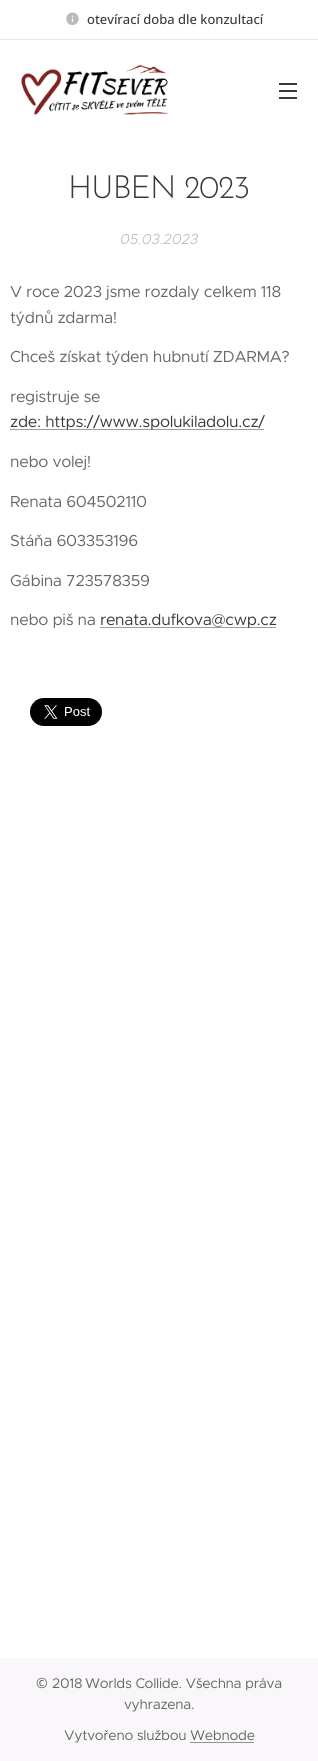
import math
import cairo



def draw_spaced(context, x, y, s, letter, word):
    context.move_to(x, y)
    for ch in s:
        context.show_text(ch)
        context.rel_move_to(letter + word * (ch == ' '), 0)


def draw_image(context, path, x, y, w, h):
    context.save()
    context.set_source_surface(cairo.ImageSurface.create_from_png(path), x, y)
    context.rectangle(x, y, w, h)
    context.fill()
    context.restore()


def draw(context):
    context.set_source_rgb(1, 1, 1)
    context.paint()
    draw_image(context, "images/1.png", 66, 12, 13, 13)
    context.set_source_rgb(232 / 255, 232 / 255, 232 / 255)
    context.rectangle(0, 39, 318, 1)
    context.fill()
    draw_image(context, "images/2.png", 21, 64, 148, 51)
    context.set_source_rgb(57 / 255, 57 / 255, 57 / 255)
    context.rectangle(279, 90, 18, 2)
    context.fill()
    context.rectangle(279, 83, 18, 2)
    context.fill()
    context.rectangle(279, 97, 18, 2)
    context.fill()
    context.set_source_rgb(156 / 255, 156 / 255, 156 / 255)
    context.rectangle(10, 429, 254, 1)
    context.fill()
    context.rectangle(100, 627, 176, 1)
    context.fill()
    draw_image(context, "images/3.png", 30, 698, 72, 28)
    context.set_source_rgb(249 / 255, 247 / 255, 250 / 255)
    context.rectangle(0, 1658, 318, 103)
    context.fill()
    context.select_font_face("Open Sans Medium")
    context.set_font_size(13)
    context.set_source_rgb(57 / 255, 57 / 255, 57 / 255)
    context.move_to(87, 24)
    context.show_text("otevírací doba dle konzultací")
    context.select_font_face("Josefin Sans Light")
    context.set_font_size(32)
    draw_spaced(context, 68, 198, "HUBEN 2023", -1, 0)
    context.select_font_face("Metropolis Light", cairo.FontSlant.ITALIC)
    context.set_font_size(14.5)
    context.set_source_rgb(186 / 255, 186 / 255, 186 / 255)
    context.move_to(120, 244)
    context.show_text("05.03.2023")
    context.select_font_face("Metropolis")
    context.set_font_size(16)
    context.set_source_rgb(102 / 255, 102 / 255, 102 / 255)
    draw_spaced(context, 10, 297, "V roce 2023 jsme rozdaly celkem 118", -0.3, 0)
    draw_spaced(context, 10, 323, "týdnů zdarma!", -0.3, 0)
    draw_spaced(context, 10, 362, "Chceš získat týden hubnutí ZDARMA?", -0.3, 0)
    draw_spaced(context, 10, 402, "registruje se", -0.3, 0)
    context.set_source_rgb(57 / 255, 57 / 255, 57 / 255)
    draw_spaced(context, 10, 427, "zde: https://www.spolukiladolu.cz/", -0.3, 0)
    context.set_source_rgb(102 / 255, 102 / 255, 102 / 255)
    draw_spaced(context, 10, 467, "nebo volej!", -0.3, 0)
    draw_spaced(context, 10, 507, "Renata 604502110", -0.3, 0)
    draw_spaced(context, 10, 546, "Stáňa 603353196", -0.3, 0)
    draw_spaced(context, 10, 586, "Gábina 723578359", -0.3, 0)
    draw_spaced(context, 10, 625, "nebo piš na", -0.3, 0)
    context.set_source_rgb(57 / 255, 57 / 255, 57 / 255)
    draw_spaced(context, 100, 625, "renata.dufkova@cwp.cz", -0.3, 0)
    context.select_font_face("Noto Sans")
    context.set_font_size(14)
    context.set_source_rgb(102 / 255, 102 / 255, 102 / 255)
    draw_spaced(context, 36, 1688, "©", -0.3, 0)
    context.select_font_face("Metropolis")
    draw_spaced(context, 52, 1688, "2018", -0.3, 0)
    draw_spaced(context, 85, 1688, "Worlds Collide. Všechna práva", -0.3, 0)
    draw_spaced(context, 124, 1709, "vyhrazena.", -0.3, 0)
    draw_spaced(context, 64, 1740, "Vytvořeno službou Webnode", -0.3, 0)
    context.set_source_rgb(146 / 255, 146 / 255, 146 / 255)
    context.rectangle(190, 1742, 64, 1)
    context.fill()


surface = cairo.ImageSurface(cairo.Format.RGB24, 318, 1761)
context = cairo.Context(surface)
options = cairo.FontOptions()
options.set_hint_metrics(cairo.HintMetrics.OFF)
options.set_hint_style(cairo.HintStyle.NONE)
context.set_font_options(options)
context.set_miter_limit(4)
draw(context)
surface.write_to_png("out.png")
